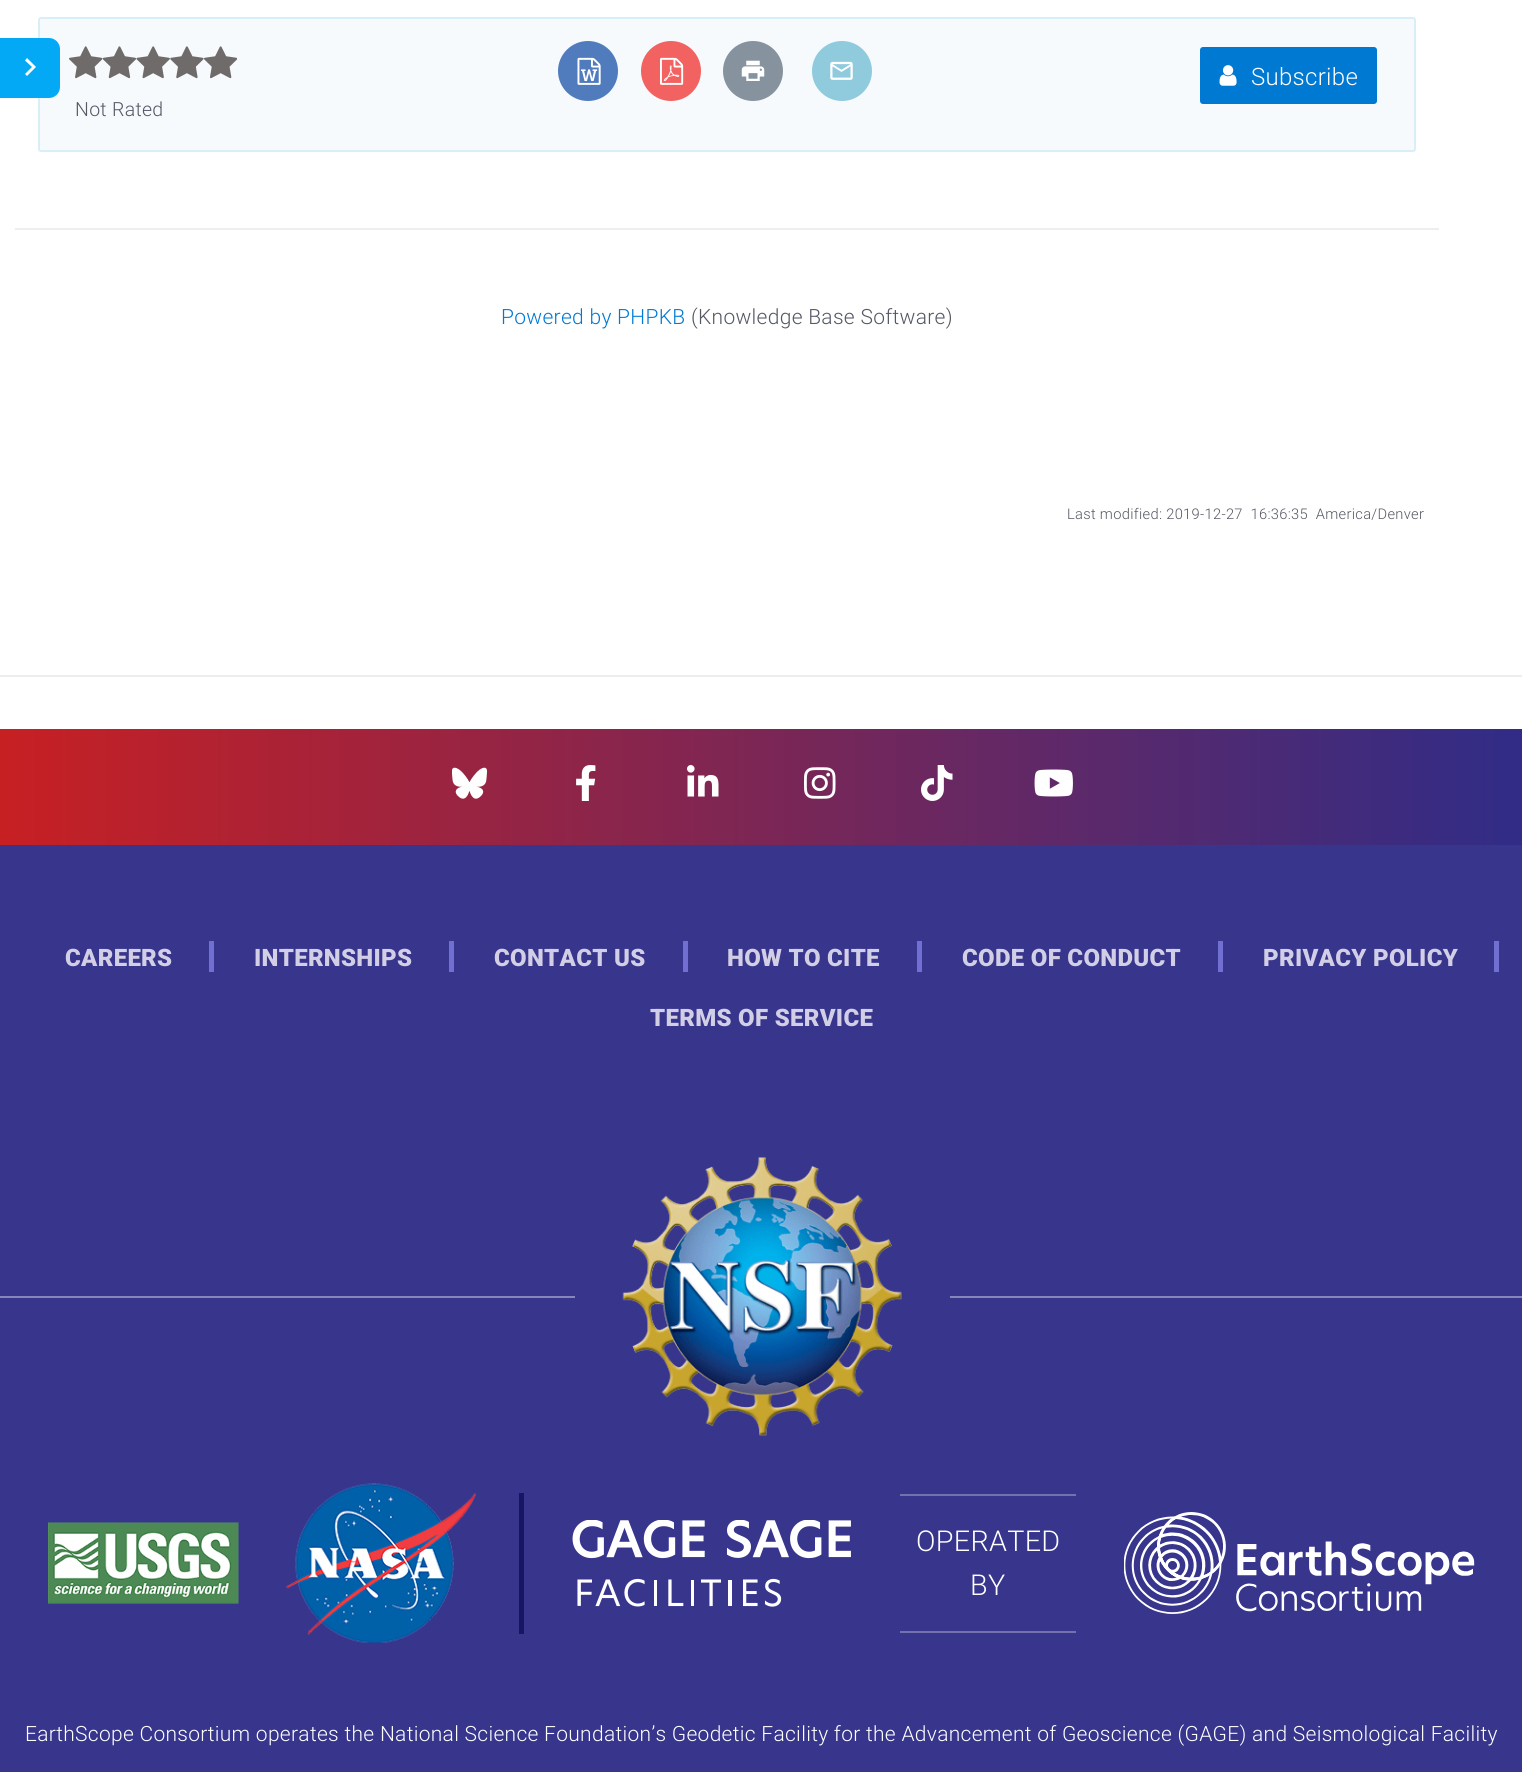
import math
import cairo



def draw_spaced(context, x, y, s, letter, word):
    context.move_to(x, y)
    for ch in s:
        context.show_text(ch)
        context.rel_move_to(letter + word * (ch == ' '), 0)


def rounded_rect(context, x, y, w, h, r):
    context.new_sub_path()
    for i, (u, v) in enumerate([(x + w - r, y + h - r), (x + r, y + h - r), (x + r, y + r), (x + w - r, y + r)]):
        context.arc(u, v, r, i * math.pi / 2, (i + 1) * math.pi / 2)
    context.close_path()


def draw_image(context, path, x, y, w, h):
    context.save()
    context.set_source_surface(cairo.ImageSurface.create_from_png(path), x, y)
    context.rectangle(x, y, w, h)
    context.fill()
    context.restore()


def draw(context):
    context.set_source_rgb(1, 1, 1)
    context.paint()
    context.set_source_rgb(246 / 255, 250 / 255, 253 / 255)
    rounded_rect(context, 39, 18, 1376, 133, 2)
    context.fill_preserve()
    context.set_source_rgb(217 / 255, 239 / 255, 247 / 255)
    context.stroke()
    context.set_source_rgb(3 / 255, 169 / 255, 244 / 255)
    context.new_path()
    context.move_to(0, 38)
    context.line_to(49, 38)
    context.curve_to(55, 38, 60, 43, 60, 49)
    context.line_to(60, 87)
    context.curve_to(60, 93, 55, 98, 49, 98)
    context.line_to(0, 98)
    context.close_path()
    context.fill()
    context.set_source_rgb(1, 1, 1)
    context.new_path()
    context.move_to(25, 74)
    context.line_to(32, 67)
    context.line_to(25, 60.5)
    context.line_to(27, 58)
    context.line_to(36, 67)
    context.line_to(27, 76)
    context.close_path()
    context.fill()
    context.set_source_rgb(80 / 255, 124 / 255, 190 / 255)
    context.arc(588, 71, 30, 0, 2 * math.pi)
    context.fill()
    draw_image(context, "images/1.png", 577, 57, 24, 28)
    context.set_source_rgb(241 / 255, 98 / 255, 97 / 255)
    context.arc(671, 71, 30, 0, 2 * math.pi)
    context.fill()
    draw_image(context, "images/2.png", 660, 57, 24, 28)
    context.set_source_rgb(134 / 255, 147 / 255, 158 / 255)
    context.arc(753, 71, 30, 0, 2 * math.pi)
    context.fill()
    draw_image(context, "images/3.png", 741, 60, 24, 21)
    context.set_source_rgb(144 / 255, 202 / 255, 221 / 255)
    context.arc(842, 71, 30, 0, 2 * math.pi)
    context.fill()
    draw_image(context, "images/4.png", 830, 61, 23, 19)
    context.set_source_rgb(0, 121 / 255, 210 / 255)
    rounded_rect(context, 1200, 47, 177, 57, 3)
    context.fill()
    draw_image(context, "images/5.png", 1219, 65, 18, 21)
    draw_image(context, "images/6.png", 69, 46, 168, 33)
    context.set_source_rgb(238 / 255, 238 / 255, 238 / 255)
    context.rectangle(15, 228, 1424, 2)
    context.fill()
    context.rectangle(0, 675, 1522, 2)
    context.fill()
    gradient = cairo.LinearGradient(0, 787, 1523, 787)
    gradient.add_color_stop_rgba(0, 199 / 255, 32 / 255, 35 / 255, 1)
    gradient.add_color_stop_rgba(0.99, 50 / 255, 44 / 255, 134 / 255, 1)
    context.set_source(gradient)
    context.rectangle(0, 729, 1522, 116)
    context.fill()
    draw_image(context, "images/7.png", 452, 767, 36, 32)
    draw_image(context, "images/8.png", 576, 765, 20, 36)
    draw_image(context, "images/9.png", 687, 765, 32, 32)
    draw_image(context, "images/10.png", 804, 767, 32, 32)
    draw_image(context, "images/11.png", 921, 765, 32, 36)
    draw_image(context, "images/12.png", 1034, 769, 39, 28)
    context.set_source_rgb(55 / 255, 53 / 255, 140 / 255)
    context.rectangle(0, 845, 1522, 927)
    context.fill()
    context.set_source_rgb(113 / 255, 111 / 255, 209 / 255)
    context.rectangle(209, 941, 5, 31)
    context.fill()
    context.rectangle(449, 941, 5, 31)
    context.fill()
    context.rectangle(683, 941, 5, 31)
    context.fill()
    context.rectangle(917, 941, 5, 31)
    context.fill()
    context.rectangle(1218, 941, 5, 31)
    context.fill()
    context.rectangle(1494, 941, 5, 31)
    context.fill()
    context.set_source_rgb(135 / 255, 134 / 255, 186 / 255)
    context.rectangle(0, 1296, 1522, 2)
    context.fill()
    context.set_source_rgb(55 / 255, 53 / 255, 140 / 255)
    context.rectangle(575, 1296, 375, 2)
    context.fill()
    draw_image(context, "images/13.png", 622, 1157, 280, 279)
    draw_image(context, "images/14.png", 48, 1522, 191, 82)
    draw_image(context, "images/15.png", 286, 1483, 190, 160)
    context.set_source_rgb(24 / 255, 22 / 255, 100 / 255)
    context.rectangle(519, 1493, 5, 141)
    context.fill()
    draw_image(context, "images/16.png", 572, 1520, 279, 87)
    context.set_source_rgb(115 / 255, 114 / 255, 175 / 255)
    context.rectangle(900, 1494, 176, 2)
    context.fill()
    context.rectangle(900, 1631, 176, 2)
    context.fill()
    draw_image(context, "images/17.png", 1124, 1512, 351, 102)
    context.select_font_face("Roboto Light")
    context.set_font_size(24)
    context.set_source_rgb(1, 1, 1)
    draw_spaced(context, 1251, 85, "Subscribe", 0.3, 0)
    context.set_font_size(19.5)
    context.set_source_rgb(84 / 255, 87 / 255, 100 / 255)
    draw_spaced(context, 75, 116, "Not Rated", 0.3, 0)
    context.set_font_size(21)
    context.set_source_rgb(0, 121 / 255, 210 / 255)
    draw_spaced(context, 501, 324, "Powered by PHPKB", 0.3, 0)
    context.set_source_rgb(84 / 255, 87 / 255, 100 / 255)
    draw_spaced(context, 691, 324, "(Knowledge Base Software)", 0.3, 0)
    context.set_font_size(14.7)
    draw_spaced(context, 1067, 519, "Last modified: 2019-12-27  16:36:35  America/Denver", 0.3, 0)
    context.select_font_face("Roboto Black")
    context.set_font_size(24)
    context.set_source_rgb(209 / 255, 206 / 255, 229 / 255)
    draw_spaced(context, 65, 966, "CAREERS", 0.3, 0)
    draw_spaced(context, 254, 966, "INTERNSHIPS", 0.3, 0)
    draw_spaced(context, 494, 966, "CONTACT US", 0.3, 0)
    draw_spaced(context, 727, 966, "HOW TO CITE", 0.3, 0)
    draw_spaced(context, 962, 966, "CODE OF CONDUCT", 0.3, 0)
    draw_spaced(context, 1263, 966, "PRIVACY POLICY", 0.3, 0)
    draw_spaced(context, 650, 1026, "TERMS OF SERVICE", 0.3, 0)
    context.select_font_face("Roboto Light")
    context.set_font_size(28.75)
    context.set_source_rgb(1, 1, 1)
    draw_spaced(context, 916, 1551, "OPERATED", 0.3, 0)
    draw_spaced(context, 970, 1595, "BY", 0.3, 0)
    context.set_font_size(21)
    draw_spaced(context, 25, 1741, "EarthScope Consortium operates the National Science Foundation’s Geodetic Facility for the Advancement of Geoscience (GAGE) and Seismological Facility", 0.3, 0)


surface = cairo.ImageSurface(cairo.Format.RGB24, 1522, 1772)
context = cairo.Context(surface)
options = cairo.FontOptions()
options.set_hint_metrics(cairo.HintMetrics.OFF)
options.set_hint_style(cairo.HintStyle.NONE)
context.set_font_options(options)
context.set_miter_limit(4)
draw(context)
surface.write_to_png("out.png")
